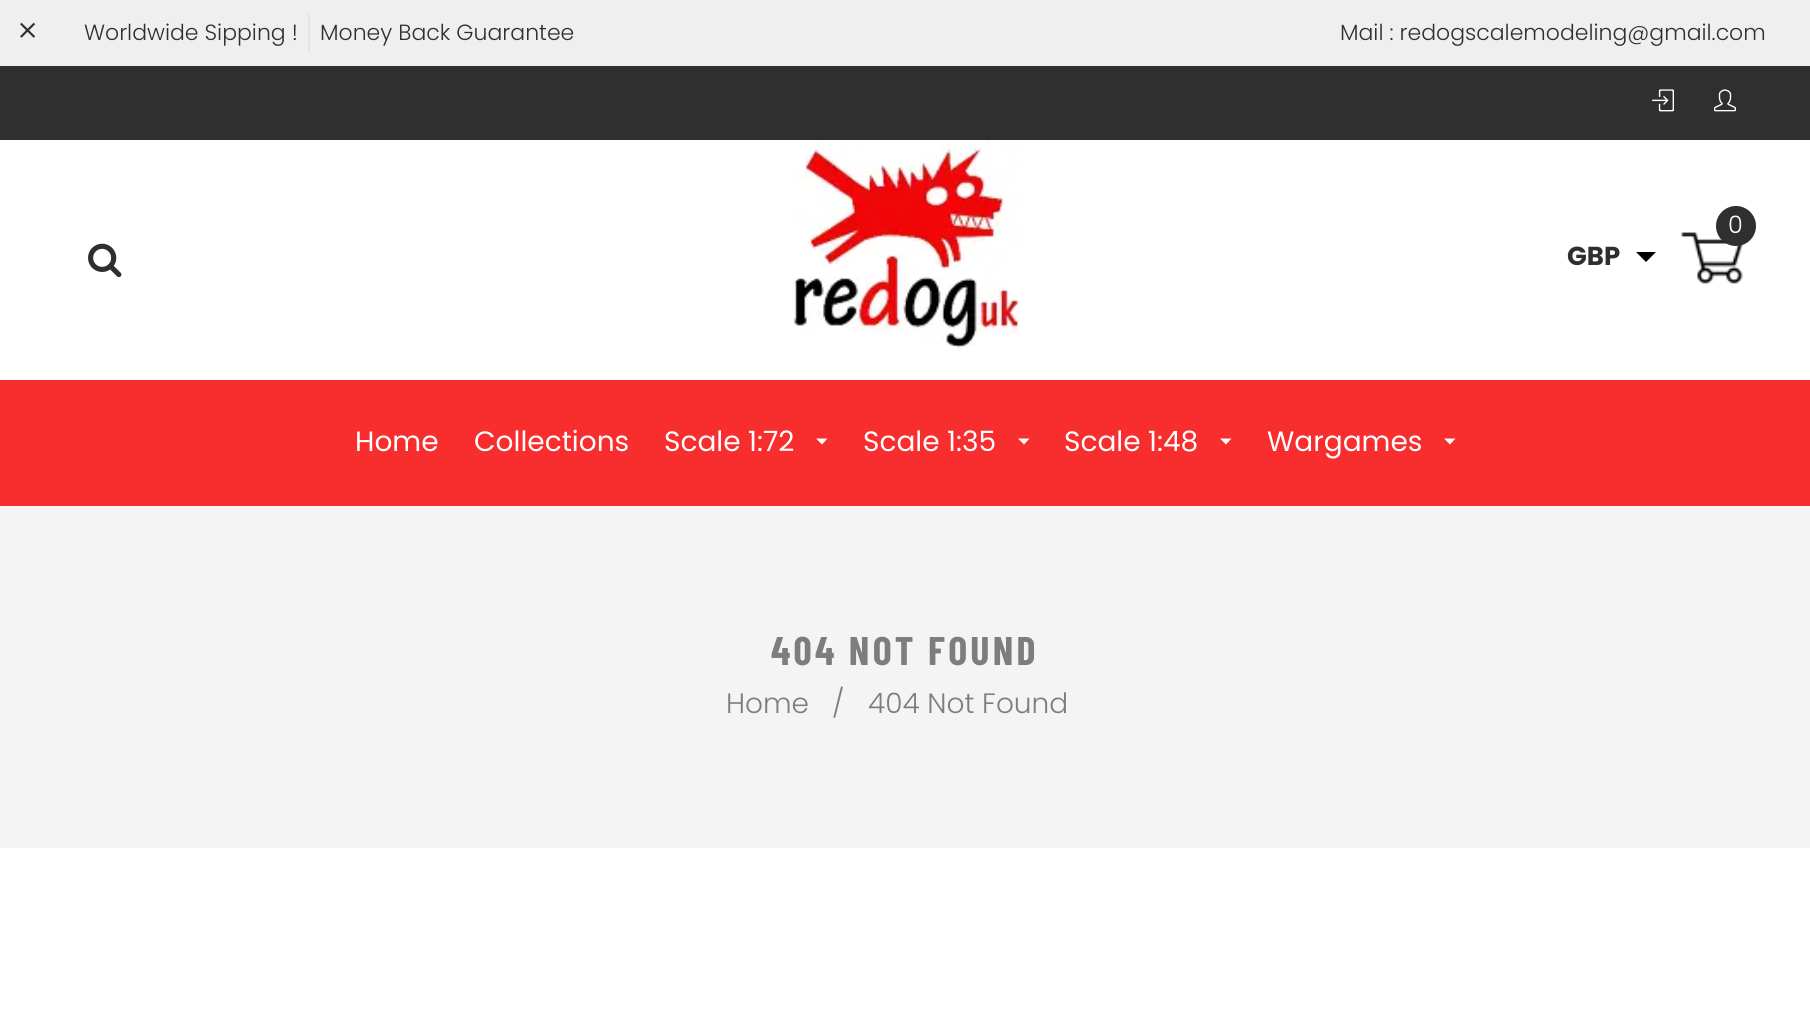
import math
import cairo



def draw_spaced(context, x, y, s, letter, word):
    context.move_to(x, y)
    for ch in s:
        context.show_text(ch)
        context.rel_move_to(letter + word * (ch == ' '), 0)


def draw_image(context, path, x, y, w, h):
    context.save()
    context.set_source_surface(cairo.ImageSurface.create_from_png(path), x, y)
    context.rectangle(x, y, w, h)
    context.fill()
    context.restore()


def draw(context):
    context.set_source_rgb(1, 1, 1)
    context.paint()
    context.set_source_rgb(239 / 255, 239 / 255, 239 / 255)
    context.rectangle(0, 0, 1810, 66)
    context.fill()
    draw_image(context, "images/1.png", 20, 22, 16, 16)
    context.set_source_rgb(228 / 255, 228 / 255, 228 / 255)
    context.rectangle(308, 14, 2, 38)
    context.fill()
    context.set_source_rgb(47 / 255, 47 / 255, 47 / 255)
    context.rectangle(0, 66, 1810, 74)
    context.fill()
    draw_image(context, "images/2.png", 1652, 89, 22, 23)
    draw_image(context, "images/3.png", 1714, 89, 22, 23)
    draw_image(context, "images/4.png", 88, 243, 34, 35)
    draw_image(context, "images/5.png", 791, 140, 229, 211)
    draw_image(context, "images/6.png", 1681, 232, 64, 52)
    context.arc(1736, 226, 20, 0, 2 * math.pi)
    context.fill()
    context.set_source_rgb(0, 0, 0)
    context.new_path()
    context.move_to(1636, 252)
    context.line_to(1656, 252)
    context.line_to(1646, 262)
    context.close_path()
    context.fill()
    context.set_source_rgb(247 / 255, 45 / 255, 46 / 255)
    context.rectangle(0, 380, 1810, 126)
    context.fill()
    context.set_source_rgb(1, 1, 1)
    context.new_path()
    context.move_to(816, 438.5)
    context.line_to(827.5, 438.5)
    context.line_to(822, 444.5)
    context.close_path()
    context.fill()
    context.new_path()
    context.move_to(1018, 438.5)
    context.line_to(1029.5, 438.5)
    context.line_to(1024, 444.5)
    context.close_path()
    context.fill()
    context.new_path()
    context.move_to(1220, 438.5)
    context.line_to(1231.5, 438.5)
    context.line_to(1226, 444.5)
    context.close_path()
    context.fill()
    context.new_path()
    context.move_to(1444, 438.5)
    context.line_to(1455.5, 438.5)
    context.line_to(1450, 444.5)
    context.close_path()
    context.fill()
    context.set_source_rgb(244 / 255, 244 / 255, 244 / 255)
    context.rectangle(0, 506, 1810, 342)
    context.fill()
    context.select_font_face("Poppins Light")
    context.set_font_size(22)
    context.set_source_rgb(47 / 255, 47 / 255, 47 / 255)
    context.move_to(84, 40)
    context.show_text("Worldwide Sipping !")
    context.move_to(320, 40)
    context.show_text("Money Back Guarantee")
    context.move_to(1340, 40)
    context.show_text("Mail : redogscalemodeling@gmail.com")
    context.set_font_size(24)
    context.set_source_rgb(1, 1, 1)
    context.move_to(1728, 233)
    context.show_text("0")
    context.select_font_face("Poppins", cairo.FontSlant.NORMAL, cairo.FontWeight.BOLD)
    context.set_font_size(26)
    context.set_source_rgb(47 / 255, 47 / 255, 47 / 255)
    context.move_to(1567, 265)
    context.show_text("GBP")
    context.select_font_face("Poppins")
    context.set_font_size(28)
    context.set_source_rgb(1, 1, 1)
    context.move_to(355, 451)
    context.show_text("Home")
    context.move_to(474, 451)
    context.show_text("Collections")
    context.move_to(664, 451)
    context.show_text("Scale 1:72")
    context.move_to(863, 451)
    context.show_text("Scale 1:35")
    context.move_to(1064, 451)
    context.show_text("Scale 1:48")
    context.move_to(1267, 451)
    context.show_text("Wargames")
    context.select_font_face("Barlow Condensed", cairo.FontSlant.NORMAL, cairo.FontWeight.BOLD)
    context.set_font_size(40)
    context.set_source_rgb(125 / 255, 125 / 255, 125 / 255)
    draw_spaced(context, 771, 665, "404 NOT FOUND", 3.25, 0)
    context.select_font_face("Poppins Light")
    context.set_font_size(28)
    context.move_to(726, 713)
    context.show_text("Home")
    context.move_to(832, 713)
    context.show_text("/")
    context.move_to(868, 713)
    context.show_text("404 Not Found")


surface = cairo.ImageSurface(cairo.Format.RGB24, 1810, 1015)
context = cairo.Context(surface)
options = cairo.FontOptions()
options.set_hint_metrics(cairo.HintMetrics.OFF)
options.set_hint_style(cairo.HintStyle.NONE)
context.set_font_options(options)
context.set_miter_limit(4)
draw(context)
surface.write_to_png("out.png")
